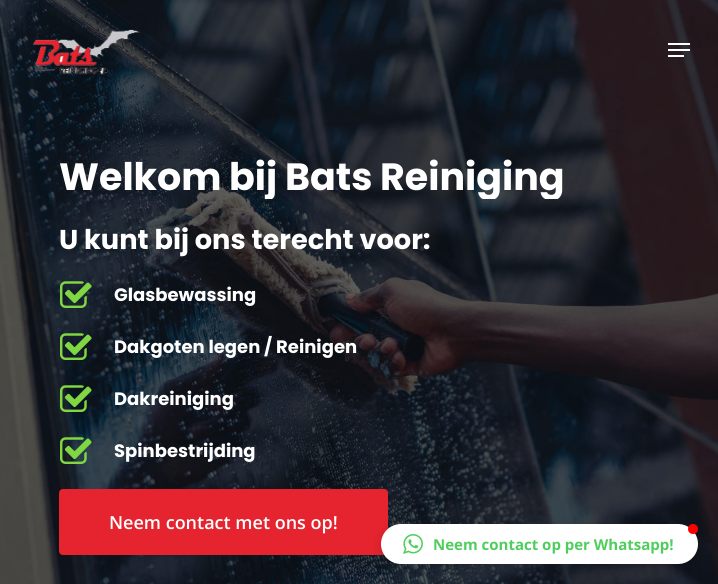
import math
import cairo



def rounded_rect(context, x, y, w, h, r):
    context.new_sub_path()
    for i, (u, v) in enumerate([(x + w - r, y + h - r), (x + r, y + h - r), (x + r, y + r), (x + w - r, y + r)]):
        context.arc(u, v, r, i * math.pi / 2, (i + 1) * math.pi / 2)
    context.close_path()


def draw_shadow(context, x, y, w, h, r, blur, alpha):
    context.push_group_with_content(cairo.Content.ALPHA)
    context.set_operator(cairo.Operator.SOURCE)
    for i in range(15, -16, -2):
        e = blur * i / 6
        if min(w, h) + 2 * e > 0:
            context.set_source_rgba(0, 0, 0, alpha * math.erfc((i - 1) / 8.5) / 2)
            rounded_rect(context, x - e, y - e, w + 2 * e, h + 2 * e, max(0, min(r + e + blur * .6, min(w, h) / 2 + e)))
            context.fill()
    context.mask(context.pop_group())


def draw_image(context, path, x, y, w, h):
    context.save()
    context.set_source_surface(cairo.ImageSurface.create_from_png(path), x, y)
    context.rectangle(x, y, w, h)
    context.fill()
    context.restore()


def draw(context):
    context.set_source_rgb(1, 1, 1)
    context.paint()
    draw_image(context, "images/2.png", 0, 0, 718, 584)
    draw_image(context, "images/1.png", 33, 29, 108, 46)
    context.set_source_rgb(1, 1, 1)
    context.rectangle(668, 43, 22, 2)
    context.fill()
    context.rectangle(668, 55, 16, 2)
    context.fill()
    context.rectangle(668, 49, 22, 2)
    context.fill()
    draw_image(context, "images/3.png", 60, 281, 32, 27)
    draw_image(context, "images/4.png", 60, 333, 32, 27)
    draw_image(context, "images/5.png", 60, 385, 32, 27)
    draw_image(context, "images/6.png", 60, 437, 32, 27)
    context.set_source_rgb(230 / 255, 36 / 255, 47 / 255)
    rounded_rect(context, 59, 489, 329, 66, 4)
    context.fill()
    context.set_source_rgb(0, 0, 0)
    draw_shadow(context, 381, 527, 317, 40, 20, 6, 0.15)
    context.set_source_rgb(1, 1, 1)
    rounded_rect(context, 381, 524, 317, 40, 20)
    context.fill()
    context.set_source_rgb(1, 0, 0)
    context.arc(693, 529, 5, 0, 2 * math.pi)
    context.fill()
    draw_image(context, "images/7.png", 403, 534, 20, 20)
    context.select_font_face("Poppins", cairo.FontSlant.NORMAL, cairo.FontWeight.BOLD)
    context.set_font_size(38)
    context.set_source_rgb(1, 1, 1)
    context.move_to(59, 190)
    context.show_text("Welkom")
    context.save()
    context.rectangle(229, 154, 48, 45)
    context.clip()
    context.move_to(229, 190)
    context.show_text("bij")
    context.restore()
    context.move_to(285, 190)
    context.show_text("Bats")
    context.save()
    context.rectangle(380, 154, 183, 45)
    context.clip()
    context.move_to(380, 190)
    context.show_text("Reiniging")
    context.restore()
    context.set_font_size(27.25)
    context.move_to(59, 249)
    context.show_text("U kunt bij ons terecht voor:")
    context.set_font_size(18)
    context.move_to(114, 301)
    context.show_text("Glasbewassing")
    context.move_to(114, 353)
    context.show_text("Dakgoten legen / Reinigen")
    context.move_to(114, 405)
    context.show_text("Dakreiniging")
    context.move_to(114, 457)
    context.show_text("Spinbestrijding")
    context.select_font_face("Open Sans SemiBold")
    context.move_to(109, 529)
    context.show_text("Neem contact met ons op!")
    context.select_font_face("Open Sans", cairo.FontSlant.NORMAL, cairo.FontWeight.BOLD)
    context.set_font_size(15)
    context.set_source_rgb(79 / 255, 206 / 255, 93 / 255)
    context.move_to(433, 550)
    context.show_text("Neem contact op per Whatsapp!")


surface = cairo.ImageSurface(cairo.Format.RGB24, 718, 584)
context = cairo.Context(surface)
options = cairo.FontOptions()
options.set_hint_metrics(cairo.HintMetrics.OFF)
options.set_hint_style(cairo.HintStyle.NONE)
context.set_font_options(options)
context.set_miter_limit(4)
draw(context)
surface.write_to_png("out.png")
